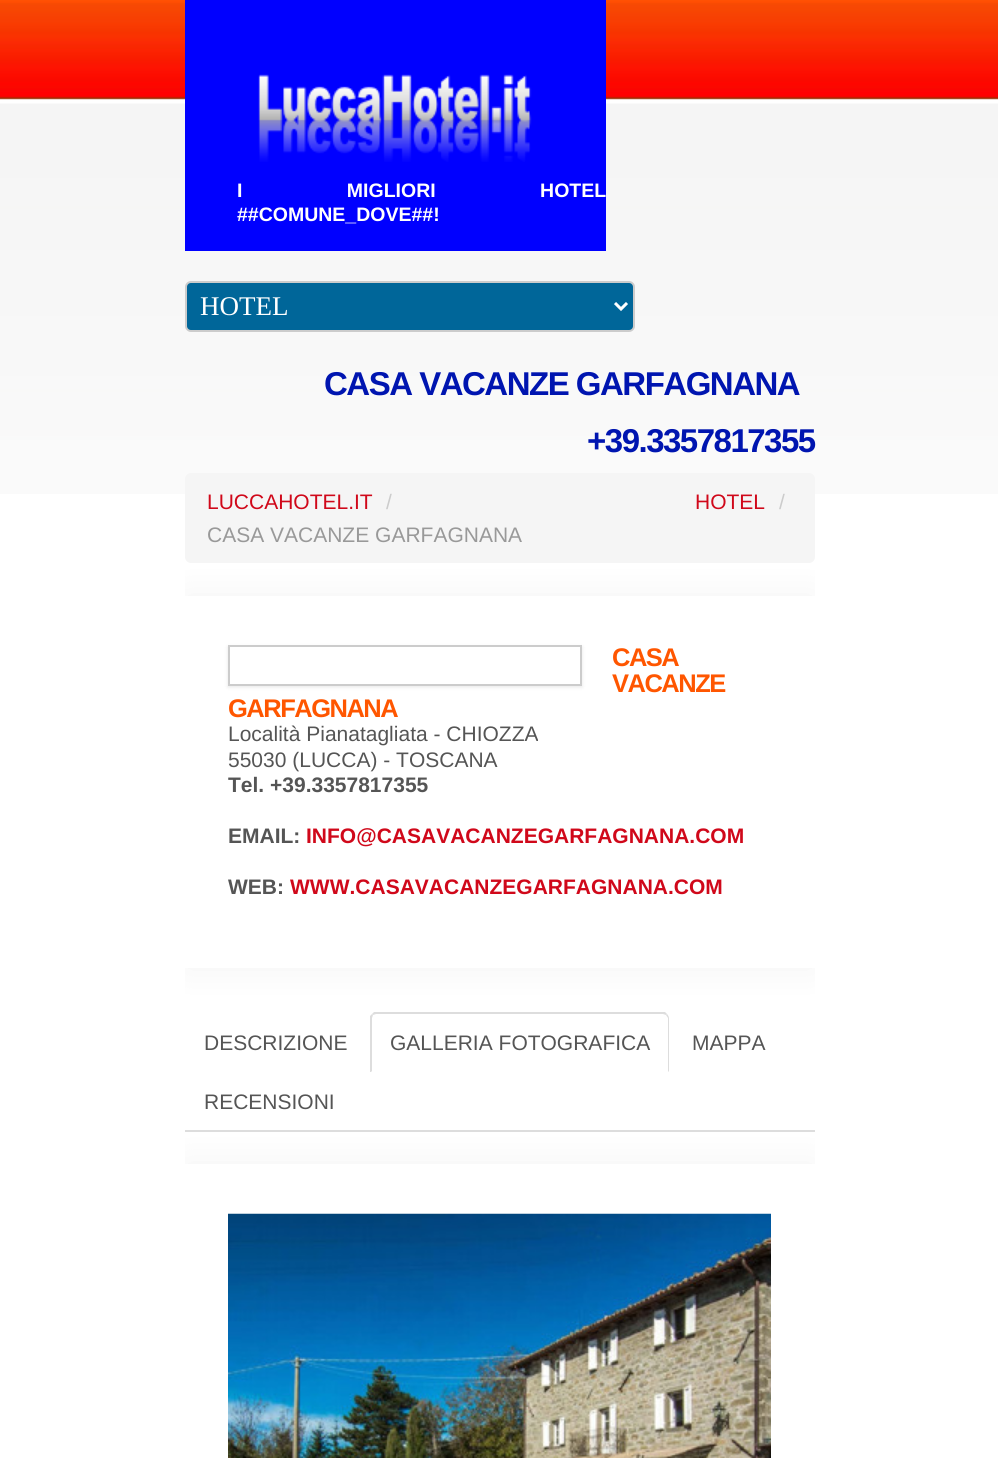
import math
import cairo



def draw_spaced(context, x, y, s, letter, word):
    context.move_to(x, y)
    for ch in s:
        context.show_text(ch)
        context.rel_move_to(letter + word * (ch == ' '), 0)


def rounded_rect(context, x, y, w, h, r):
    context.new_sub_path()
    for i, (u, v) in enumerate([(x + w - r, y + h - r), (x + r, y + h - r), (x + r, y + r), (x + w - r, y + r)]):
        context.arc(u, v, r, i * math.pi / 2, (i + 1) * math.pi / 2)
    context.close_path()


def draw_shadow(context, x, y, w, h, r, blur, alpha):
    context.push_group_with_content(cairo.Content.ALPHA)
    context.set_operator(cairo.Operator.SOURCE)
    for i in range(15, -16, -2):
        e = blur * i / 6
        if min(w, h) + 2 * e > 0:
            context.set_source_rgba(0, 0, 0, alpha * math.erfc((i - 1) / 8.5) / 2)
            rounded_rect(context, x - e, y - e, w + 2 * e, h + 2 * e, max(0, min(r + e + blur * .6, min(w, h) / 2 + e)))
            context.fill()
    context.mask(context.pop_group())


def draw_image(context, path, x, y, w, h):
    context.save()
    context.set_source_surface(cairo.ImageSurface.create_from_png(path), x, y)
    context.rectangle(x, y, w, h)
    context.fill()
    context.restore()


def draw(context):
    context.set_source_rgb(1, 1, 1)
    context.paint()
    draw_image(context, "images/1.png", 0, 0, 998, 494)
    context.set_source_rgb(0, 0, 1)
    context.rectangle(185, 0, 421, 251)
    context.fill()
    draw_image(context, "images/2.png", 258, 74, 274, 88)
    context.set_source_rgb(0, 102 / 255, 153 / 255)
    rounded_rect(context, 186, 282, 448, 49, 5)
    context.fill_preserve()
    context.set_source_rgb(204 / 255, 204 / 255, 204 / 255)
    context.stroke()
    context.new_path()
    context.move_to(615, 303)
    context.line_to(621, 309)
    context.line_to(627, 303)
    context.set_source_rgb(1, 1, 1)
    context.set_line_width(3)
    context.stroke()
    context.set_source_rgb(245 / 255, 245 / 255, 245 / 255)
    rounded_rect(context, 185, 473, 630, 90, 6)
    context.fill()
    context.set_source_rgb(221 / 255, 221 / 255, 221 / 255)
    context.new_path()
    context.move_to(376, 1014)
    context.line_to(373, 1015)
    context.line_to(372, 1014)
    context.line_to(374, 1012)
    context.line_to(665, 1012)
    context.line_to(667, 1014)
    context.line_to(666, 1015)
    context.line_to(663, 1014)
    context.close_path()
    context.fill()
    context.new_path()
    context.move_to(669, 1072)
    context.line_to(669, 1018)
    context.curve_to(669, 1017, 668, 1015, 667, 1014)
    context.line_to(666, 1015)
    context.line_to(668, 1018)
    context.line_to(668, 1071)
    context.close_path()
    context.fill()
    context.new_path()
    context.move_to(370, 1016)
    context.line_to(372, 1014)
    context.line_to(373, 1015)
    context.line_to(372, 1018)
    context.line_to(372, 1071)
    context.line_to(371, 1072)
    context.line_to(370, 1072)
    context.close_path()
    context.fill()
    context.save()
    context.rectangle(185, 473, 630, 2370)
    context.clip()
    context.set_source_rgb(0, 0, 0)
    draw_shadow(context, 185, 596, 630, 372, 0, 18, 0.05)
    context.restore()
    context.set_source_rgb(1, 1, 1)
    context.rectangle(185, 596, 630, 372)
    context.fill()
    context.set_source_rgb(0, 0, 0)
    draw_shadow(context, 228, 647, 354, 40, 0, 2, 0.1)
    context.set_source_rgb(1, 1, 1)
    context.rectangle(229, 646, 352, 39)
    context.fill_preserve()
    context.set_source_rgb(204 / 255, 204 / 255, 204 / 255)
    context.set_line_width(2)
    context.stroke()
    context.set_source_rgb(221 / 255, 221 / 255, 221 / 255)
    context.rectangle(185, 1130, 630, 2)
    context.fill()
    context.save()
    context.rectangle(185, 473, 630, 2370)
    context.clip()
    context.set_source_rgb(0, 0, 0)
    draw_shadow(context, 185, 1164, 630, 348, 0, 18, 0.05)
    context.restore()
    context.set_source_rgb(1, 1, 1)
    context.rectangle(185, 1164, 630, 294)
    context.fill()
    draw_image(context, "images/3.png", 228, 1213, 543, 245)
    context.select_font_face("Liberation Sans", cairo.FontSlant.NORMAL, cairo.FontWeight.BOLD)
    context.set_font_size(19.5)
    draw_spaced(context, 237, 197, "I MIGLIORI HOTEL", 0, 99)
    context.move_to(237, 221)
    context.show_text("##COMUNE_DOVE##!")
    context.select_font_face("Liberation Serif")
    context.set_font_size(27)
    context.move_to(200, 315)
    context.show_text("HOTEL")
    context.select_font_face("Liberation Sans", cairo.FontSlant.NORMAL, cairo.FontWeight.BOLD)
    context.set_font_size(33)
    context.set_source_rgb(0, 21 / 255, 176 / 255)
    draw_spaced(context, 324, 395, "CASA VACANZE GARFAGNANA", -1.5, 0)
    draw_spaced(context, 587, 452, "+39.3357817355", -1.5, 0)
    context.select_font_face("Liberation Sans")
    context.set_font_size(21)
    context.set_source_rgb(208 / 255, 8 / 255, 26 / 255)
    context.move_to(207, 509)
    context.show_text("LUCCAHOTEL.IT")
    context.set_source_rgb(204 / 255, 204 / 255, 204 / 255)
    context.move_to(386, 509)
    context.show_text("/")
    context.set_source_rgb(208 / 255, 8 / 255, 26 / 255)
    context.move_to(695, 509)
    context.show_text("HOTEL")
    context.set_source_rgb(204 / 255, 204 / 255, 204 / 255)
    context.move_to(779, 509)
    context.show_text("/")
    context.set_source_rgb(153 / 255, 153 / 255, 153 / 255)
    context.move_to(207, 542)
    context.show_text("CASA VACANZE GARFAGNANA")
    context.select_font_face("Liberation Sans", cairo.FontSlant.NORMAL, cairo.FontWeight.BOLD)
    context.set_font_size(25.5)
    context.set_source_rgb(1, 86 / 255, 0)
    draw_spaced(context, 612, 666, "CASA", -1.5, 0)
    draw_spaced(context, 612, 692, "VACANZE", -1.5, 0)
    draw_spaced(context, 228, 717, "GARFAGNANA", -1.5, 0)
    context.select_font_face("Liberation Sans")
    context.set_font_size(21)
    context.set_source_rgb(85 / 255, 85 / 255, 85 / 255)
    context.move_to(228, 741)
    context.show_text("Località Pianatagliata - CHIOZZA")
    context.move_to(228, 767)
    context.show_text("55030 (LUCCA) - TOSCANA")
    context.select_font_face("Liberation Sans", cairo.FontSlant.NORMAL, cairo.FontWeight.BOLD)
    context.move_to(228, 792)
    context.show_text("Tel. +39.3357817355")
    context.move_to(228, 843)
    context.show_text("EMAIL:")
    context.set_source_rgb(208 / 255, 8 / 255, 26 / 255)
    context.move_to(306, 843)
    context.show_text("INFO@CASAVACANZEGARFAGNANA.COM")
    context.set_source_rgb(85 / 255, 85 / 255, 85 / 255)
    context.move_to(228, 894)
    context.show_text("WEB:")
    context.set_source_rgb(208 / 255, 8 / 255, 26 / 255)
    context.move_to(290, 894)
    context.show_text("WWW.CASAVACANZEGARFAGNANA.COM")
    context.select_font_face("Liberation Sans")
    context.set_source_rgb(85 / 255, 85 / 255, 85 / 255)
    context.move_to(204, 1050)
    context.show_text("DESCRIZIONE")
    context.move_to(390, 1050)
    context.show_text("GALLERIA FOTOGRAFICA")
    context.move_to(692, 1050)
    context.show_text("MAPPA")
    context.move_to(204, 1109)
    context.show_text("RECENSIONI")


surface = cairo.ImageSurface(cairo.Format.RGB24, 998, 1458)
context = cairo.Context(surface)
options = cairo.FontOptions()
options.set_hint_metrics(cairo.HintMetrics.OFF)
options.set_hint_style(cairo.HintStyle.NONE)
context.set_font_options(options)
context.set_miter_limit(4)
draw(context)
surface.write_to_png("out.png")
